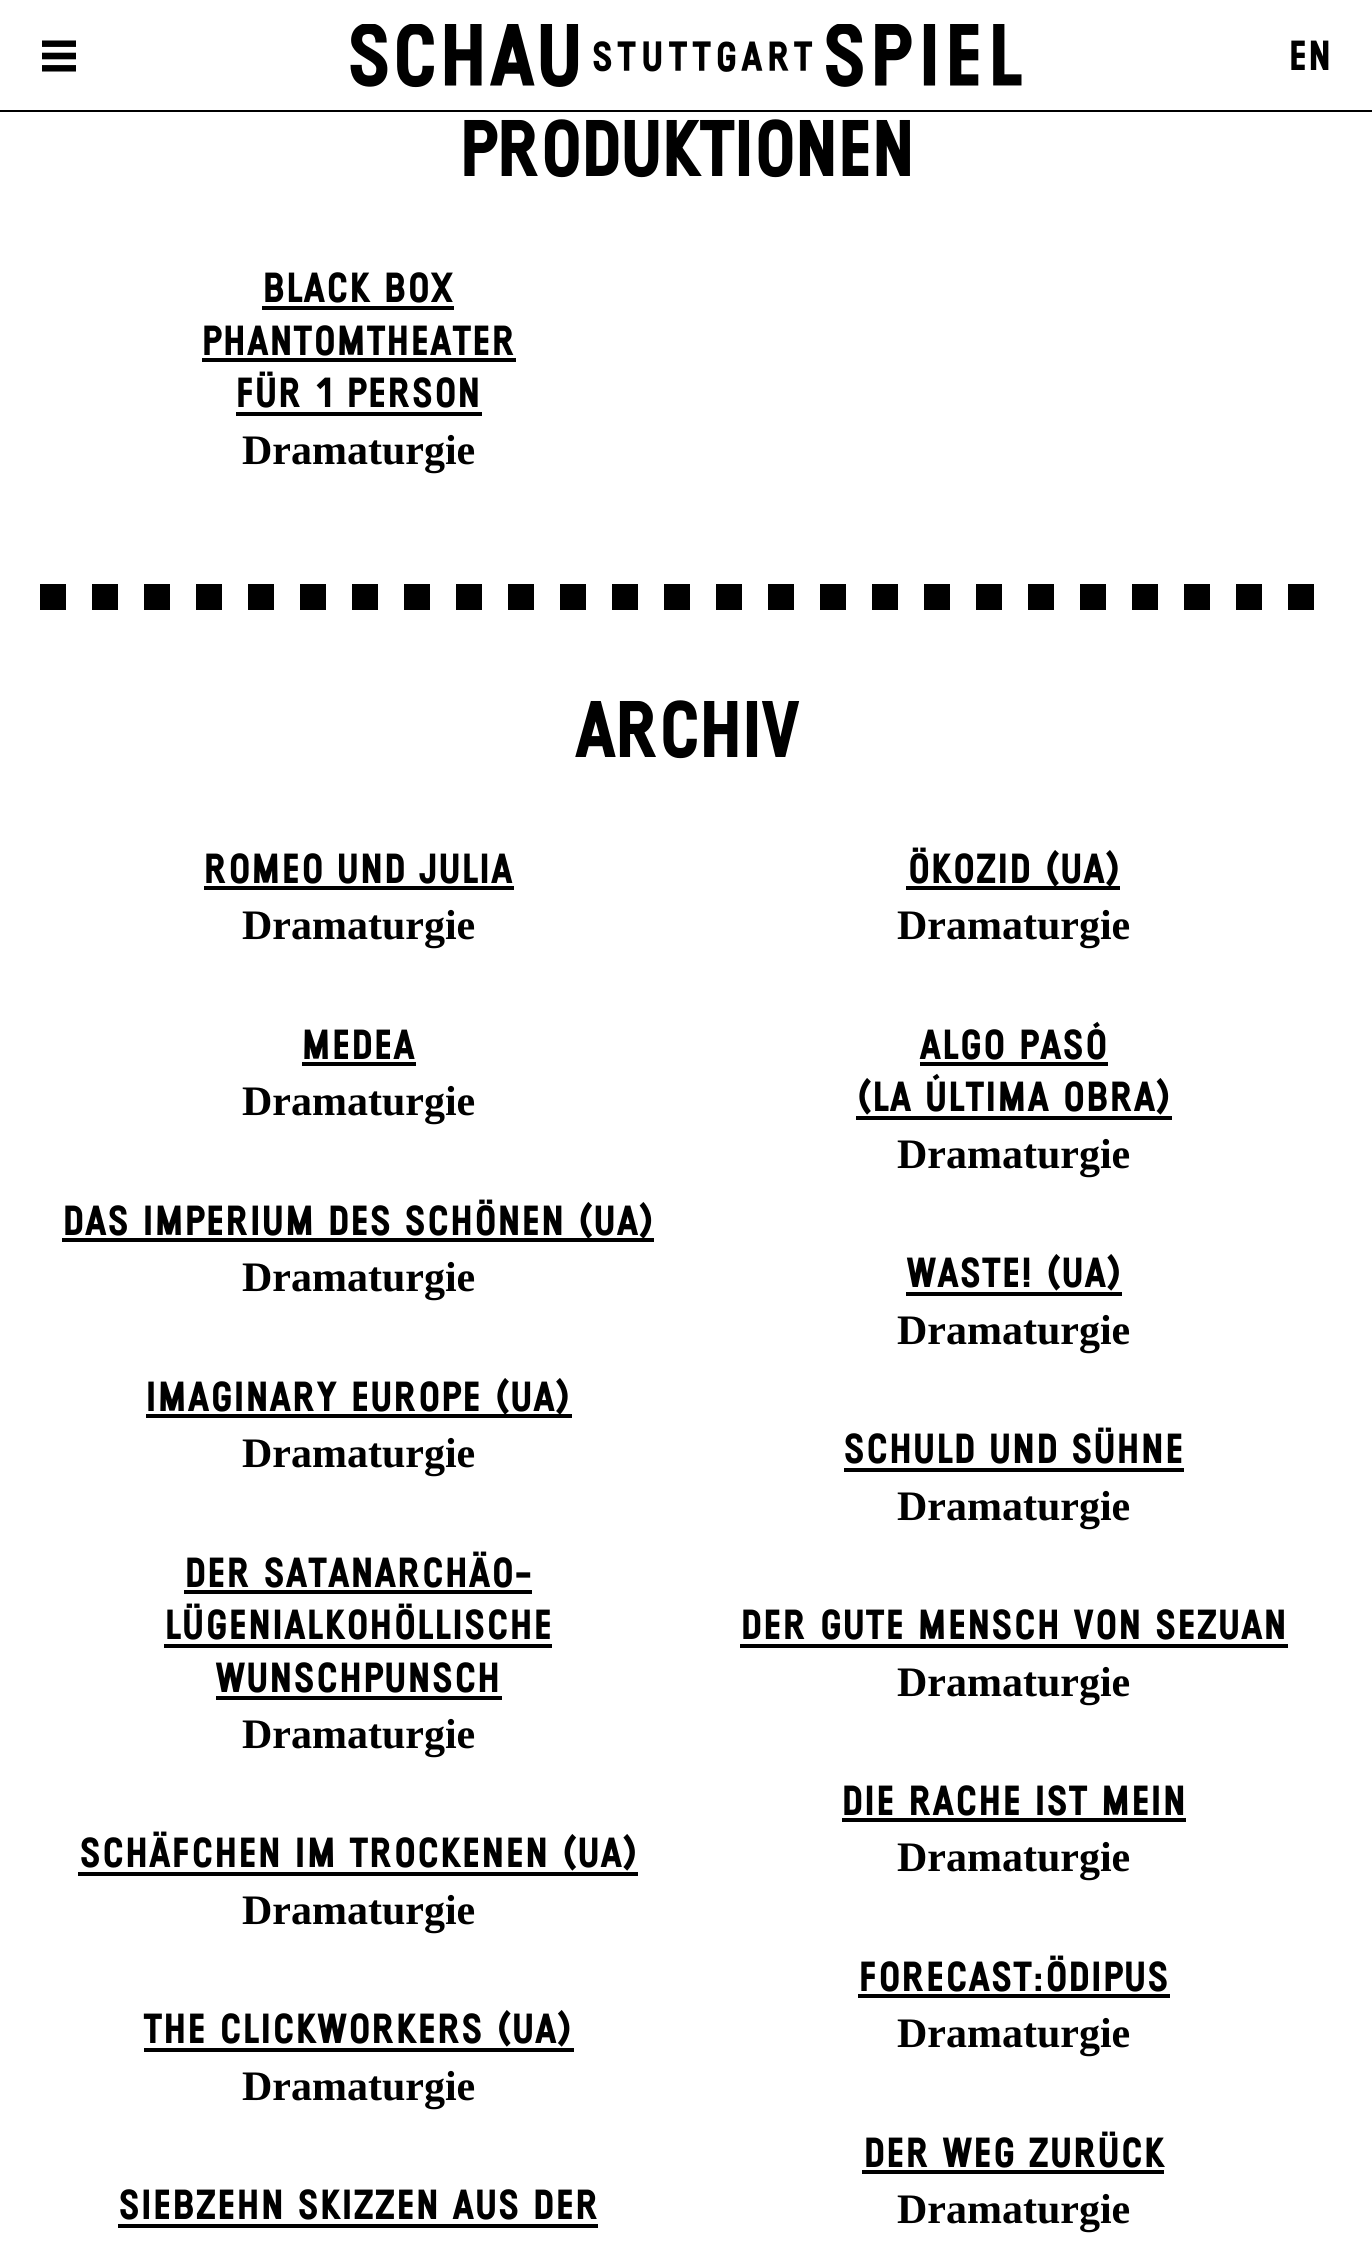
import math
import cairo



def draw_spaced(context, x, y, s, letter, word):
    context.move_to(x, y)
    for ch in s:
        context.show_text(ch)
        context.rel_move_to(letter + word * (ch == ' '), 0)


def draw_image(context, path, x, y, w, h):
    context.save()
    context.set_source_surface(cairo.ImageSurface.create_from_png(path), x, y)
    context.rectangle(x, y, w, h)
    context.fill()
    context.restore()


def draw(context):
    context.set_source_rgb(1, 1, 1)
    context.paint()
    context.set_source_rgb(0, 0, 0)
    context.rectangle(0, 110, 1372, 2)
    context.fill()
    draw_image(context, "images/1.png", 42, 40, 34, 32)
    draw_image(context, "images/2.png", 350, 24, 672, 64)
    context.rectangle(262, 306, 192, 4)
    context.fill()
    context.rectangle(202, 358, 314, 4)
    context.fill()
    context.rectangle(236, 412, 246, 4)
    context.fill()
    draw_image(context, "images/3.png", 40, 584, 1274, 26)
    context.rectangle(204, 886, 310, 4)
    context.fill()
    context.rectangle(302, 1062, 114, 4)
    context.fill()
    context.rectangle(62, 1238, 592, 4)
    context.fill()
    context.rectangle(146, 1414, 426, 4)
    context.fill()
    context.rectangle(184, 1590, 348, 4)
    context.fill()
    context.rectangle(164, 1644, 388, 4)
    context.fill()
    context.rectangle(216, 1696, 286, 4)
    context.fill()
    context.rectangle(78, 1872, 560, 4)
    context.fill()
    context.rectangle(144, 2048, 430, 4)
    context.fill()
    context.rectangle(118, 2224, 480, 4)
    context.fill()
    context.rectangle(906, 886, 214, 4)
    context.fill()
    context.rectangle(920, 1062, 188, 4)
    context.fill()
    context.rectangle(856, 1116, 316, 4)
    context.fill()
    context.rectangle(906, 1292, 216, 4)
    context.fill()
    context.rectangle(844, 1468, 340, 4)
    context.fill()
    context.rectangle(740, 1644, 548, 4)
    context.fill()
    context.rectangle(842, 1818, 344, 4)
    context.fill()
    context.rectangle(858, 1994, 312, 4)
    context.fill()
    context.rectangle(862, 2170, 302, 4)
    context.fill()
    context.select_font_face("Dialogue", cairo.FontSlant.NORMAL, cairo.FontWeight.BOLD)
    context.set_font_size(42)
    context.move_to(1288, 70)
    context.show_text("EN")
    context.set_font_size(80)
    draw_spaced(context, 458, 176, "PRODUKTIONEN", -3.25, 0)
    context.set_font_size(42)
    context.move_to(262, 302)
    context.show_text("BLACK BOX")
    context.move_to(201, 355)
    context.show_text("PHANTOMTHEATER")
    context.move_to(235, 407)
    context.show_text("FÜR 1 PERSON")
    context.select_font_face("Liberation Serif", cairo.FontSlant.NORMAL, cairo.FontWeight.BOLD)
    context.move_to(242, 464)
    context.show_text("Dramaturgie")
    context.select_font_face("Dialogue", cairo.FontSlant.NORMAL, cairo.FontWeight.BOLD)
    context.set_font_size(80)
    draw_spaced(context, 574, 757, "ARCHIV", -3.25, 0)
    context.set_font_size(42)
    context.move_to(203, 883)
    context.show_text("ROMEO UND JULIA")
    context.select_font_face("Liberation Serif", cairo.FontSlant.NORMAL, cairo.FontWeight.BOLD)
    context.move_to(242, 939)
    context.show_text("Dramaturgie")
    context.select_font_face("Dialogue", cairo.FontSlant.NORMAL, cairo.FontWeight.BOLD)
    context.move_to(301, 1059)
    context.show_text("MEDEA")
    context.select_font_face("Liberation Serif", cairo.FontSlant.NORMAL, cairo.FontWeight.BOLD)
    context.move_to(242, 1115)
    context.show_text("Dramaturgie")
    context.select_font_face("Dialogue", cairo.FontSlant.NORMAL, cairo.FontWeight.BOLD)
    context.move_to(62, 1235)
    context.show_text("DAS IMPERIUM DES SCHÖNEN (UA)")
    context.select_font_face("Liberation Serif", cairo.FontSlant.NORMAL, cairo.FontWeight.BOLD)
    context.move_to(242, 1291)
    context.show_text("Dramaturgie")
    context.select_font_face("Dialogue", cairo.FontSlant.NORMAL, cairo.FontWeight.BOLD)
    context.move_to(145, 1411)
    context.show_text("IMAGINARY EUROPE (UA)")
    context.select_font_face("Liberation Serif", cairo.FontSlant.NORMAL, cairo.FontWeight.BOLD)
    context.move_to(242, 1467)
    context.show_text("Dramaturgie")
    context.select_font_face("Dialogue", cairo.FontSlant.NORMAL, cairo.FontWeight.BOLD)
    context.move_to(184, 1587)
    context.show_text("DER SATANARCHÄO-")
    context.move_to(164, 1639)
    context.show_text("LÜGENIALKOHÖLLISCHE")
    context.move_to(215, 1692)
    context.show_text("WUNSCHPUNSCH")
    context.select_font_face("Liberation Serif", cairo.FontSlant.NORMAL, cairo.FontWeight.BOLD)
    context.move_to(242, 1748)
    context.show_text("Dramaturgie")
    context.select_font_face("Dialogue", cairo.FontSlant.NORMAL, cairo.FontWeight.BOLD)
    context.move_to(79, 1867)
    context.show_text("SCHÄFCHEN IM TROCKENEN (UA)")
    context.select_font_face("Liberation Serif", cairo.FontSlant.NORMAL, cairo.FontWeight.BOLD)
    context.move_to(242, 1924)
    context.show_text("Dramaturgie")
    context.select_font_face("Dialogue", cairo.FontSlant.NORMAL, cairo.FontWeight.BOLD)
    context.move_to(143, 2043)
    context.show_text("THE CLICKWORKERS (UA)")
    context.select_font_face("Liberation Serif", cairo.FontSlant.NORMAL, cairo.FontWeight.BOLD)
    context.move_to(242, 2100)
    context.show_text("Dramaturgie")
    context.select_font_face("Dialogue", cairo.FontSlant.NORMAL, cairo.FontWeight.BOLD)
    context.move_to(118, 2219)
    context.show_text("SIEBZEHN SKIZZEN AUS DER")
    context.move_to(907, 883)
    context.show_text("ÖKOZID (UA)")
    context.select_font_face("Liberation Serif", cairo.FontSlant.NORMAL, cairo.FontWeight.BOLD)
    context.move_to(897, 939)
    context.show_text("Dramaturgie")
    context.select_font_face("Dialogue", cairo.FontSlant.NORMAL, cairo.FontWeight.BOLD)
    context.move_to(919, 1059)
    context.show_text("ALGO PASÓ")
    context.move_to(856, 1111)
    context.show_text("(LA ÚLTIMA OBRA)")
    context.select_font_face("Liberation Serif", cairo.FontSlant.NORMAL, cairo.FontWeight.BOLD)
    context.move_to(897, 1168)
    context.show_text("Dramaturgie")
    context.select_font_face("Dialogue", cairo.FontSlant.NORMAL, cairo.FontWeight.BOLD)
    context.move_to(906, 1287)
    context.show_text("WASTE! (UA)")
    context.select_font_face("Liberation Serif", cairo.FontSlant.NORMAL, cairo.FontWeight.BOLD)
    context.move_to(897, 1344)
    context.show_text("Dramaturgie")
    context.select_font_face("Dialogue", cairo.FontSlant.NORMAL, cairo.FontWeight.BOLD)
    context.move_to(843, 1463)
    context.show_text("SCHULD UND SÜHNE")
    context.select_font_face("Liberation Serif", cairo.FontSlant.NORMAL, cairo.FontWeight.BOLD)
    context.move_to(897, 1520)
    context.show_text("Dramaturgie")
    context.select_font_face("Dialogue", cairo.FontSlant.NORMAL, cairo.FontWeight.BOLD)
    context.move_to(740, 1639)
    context.show_text("DER GUTE MENSCH VON SEZUAN")
    context.select_font_face("Liberation Serif", cairo.FontSlant.NORMAL, cairo.FontWeight.BOLD)
    context.move_to(897, 1696)
    context.show_text("Dramaturgie")
    context.select_font_face("Dialogue", cairo.FontSlant.NORMAL, cairo.FontWeight.BOLD)
    context.move_to(841, 1815)
    context.show_text("DIE RACHE IST MEIN")
    context.select_font_face("Liberation Serif", cairo.FontSlant.NORMAL, cairo.FontWeight.BOLD)
    context.move_to(897, 1871)
    context.show_text("Dramaturgie")
    context.select_font_face("Dialogue", cairo.FontSlant.NORMAL, cairo.FontWeight.BOLD)
    context.move_to(858, 1991)
    context.show_text("FORECAST:ÖDIPUS")
    context.select_font_face("Liberation Serif", cairo.FontSlant.NORMAL, cairo.FontWeight.BOLD)
    context.move_to(897, 2047)
    context.show_text("Dramaturgie")
    context.select_font_face("Dialogue", cairo.FontSlant.NORMAL, cairo.FontWeight.BOLD)
    context.move_to(863, 2167)
    context.show_text("DER WEG ZURÜCK")
    context.select_font_face("Liberation Serif", cairo.FontSlant.NORMAL, cairo.FontWeight.BOLD)
    context.move_to(897, 2223)
    context.show_text("Dramaturgie")


surface = cairo.ImageSurface(cairo.Format.RGB24, 1372, 2258)
context = cairo.Context(surface)
options = cairo.FontOptions()
options.set_hint_metrics(cairo.HintMetrics.OFF)
options.set_hint_style(cairo.HintStyle.NONE)
context.set_font_options(options)
context.set_miter_limit(4)
draw(context)
surface.write_to_png("out.png")
